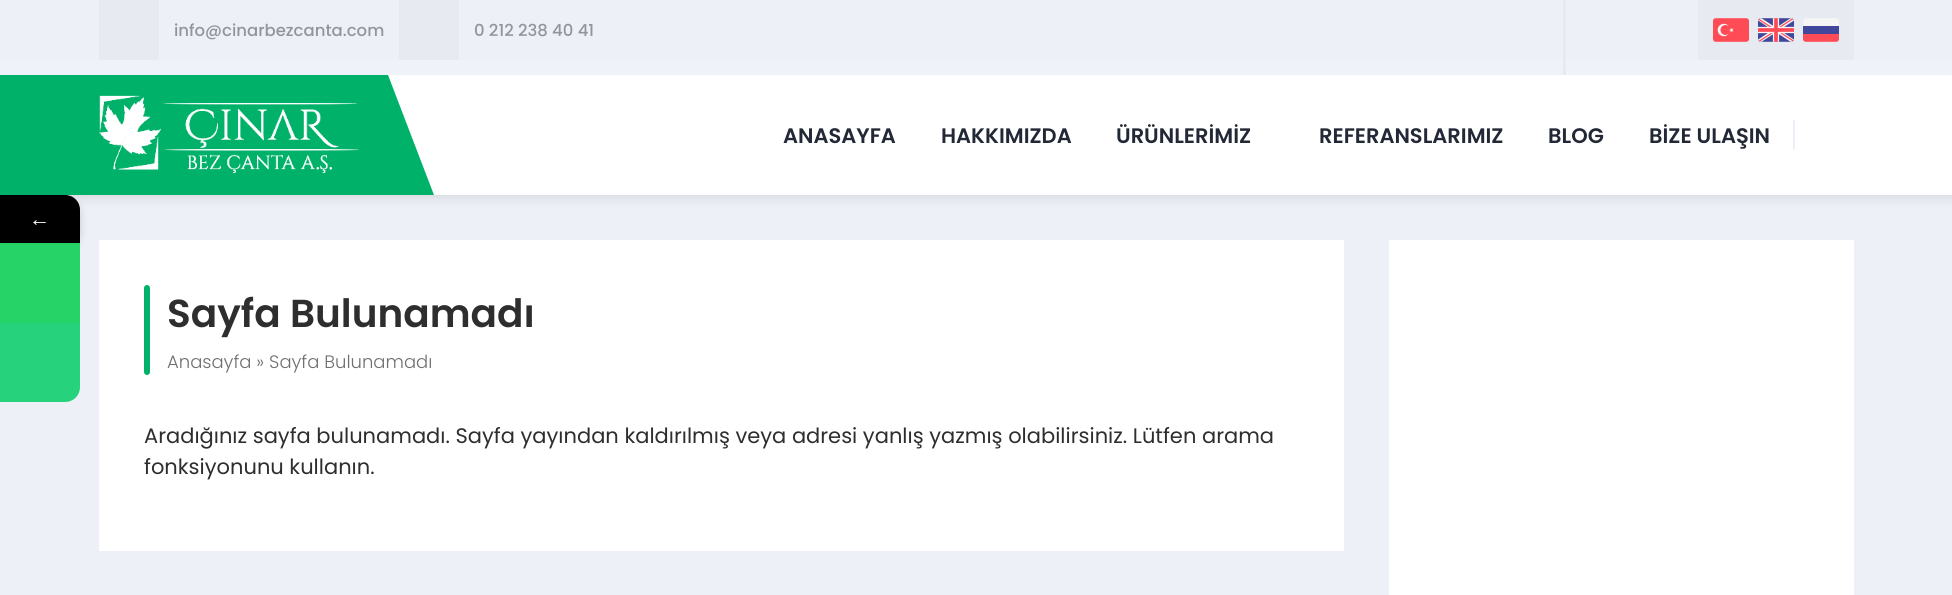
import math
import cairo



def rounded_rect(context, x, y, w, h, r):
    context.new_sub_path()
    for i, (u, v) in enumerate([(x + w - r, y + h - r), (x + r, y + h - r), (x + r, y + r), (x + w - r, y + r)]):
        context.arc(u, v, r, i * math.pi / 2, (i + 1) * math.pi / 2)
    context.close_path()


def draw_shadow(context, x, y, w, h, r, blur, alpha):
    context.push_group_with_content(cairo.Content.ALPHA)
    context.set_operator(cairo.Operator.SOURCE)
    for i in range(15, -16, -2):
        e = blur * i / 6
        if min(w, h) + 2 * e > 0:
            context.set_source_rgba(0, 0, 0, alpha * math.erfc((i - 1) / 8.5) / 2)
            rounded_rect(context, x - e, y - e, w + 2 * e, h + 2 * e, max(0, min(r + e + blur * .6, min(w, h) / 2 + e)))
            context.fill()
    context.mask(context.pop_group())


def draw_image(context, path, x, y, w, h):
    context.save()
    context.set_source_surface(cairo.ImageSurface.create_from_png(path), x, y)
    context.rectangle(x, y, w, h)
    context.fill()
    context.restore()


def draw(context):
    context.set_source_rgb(237 / 255, 240 / 255, 247 / 255)
    context.paint()
    context.set_source_rgb(0, 0, 0)
    draw_shadow(context, 0, 75, 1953, 120, 0, 7.5, 0.15)
    context.set_source_rgb(239 / 255, 242 / 255, 248 / 255)
    context.rectangle(0, 59, 1952, 16)
    context.fill()
    context.set_source_rgb(231 / 255, 234 / 255, 240 / 255)
    context.rectangle(99, 0, 60, 60)
    context.fill()
    context.rectangle(399, 0, 60, 60)
    context.fill()
    context.rectangle(1563, 0, 3, 75)
    context.fill()
    context.rectangle(1698, 0, 156, 60)
    context.fill()
    draw_image(context, "images/1.png", 1713, 18, 36, 24)
    draw_image(context, "images/2.png", 1758, 18, 36, 24)
    draw_image(context, "images/3.png", 1803, 18, 36, 24)
    context.set_source_rgb(0, 177 / 255, 105 / 255)
    context.rectangle(0, 75, 434, 120)
    context.fill()
    context.set_source_rgb(1, 1, 1)
    context.rectangle(434, 75, 1518, 120)
    context.fill()
    draw_image(context, "images/4.png", 99, 95, 260, 78)
    context.new_path()
    context.move_to(434, 75)
    context.line_to(434, 195)
    context.line_to(388, 75)
    context.close_path()
    context.fill()
    context.set_source_rgb(237 / 255, 240 / 255, 247 / 255)
    context.rectangle(1793, 120, 2, 30)
    context.fill()
    context.set_source_rgb(0, 0, 0)
    draw_shadow(context, 0, 200, 80, 48, 15, 4.5, 0.16)
    context.set_source_rgb(0, 0, 0)
    context.new_path()
    context.move_to(0, 195)
    context.line_to(65, 195)
    context.curve_to(73.5, 195, 80, 201.5, 80, 210)
    context.line_to(80, 243)
    context.line_to(0, 243)
    context.close_path()
    context.fill()
    context.set_source_rgb(38 / 255, 211 / 255, 103 / 255)
    context.rectangle(0, 243, 80, 80)
    context.fill()
    context.set_source_rgb(38 / 255, 211 / 255, 124 / 255)
    context.new_path()
    context.move_to(0, 323)
    context.line_to(80, 323)
    context.line_to(80, 387)
    context.curve_to(80, 395.5, 73.5, 402, 65, 402)
    context.line_to(0, 402)
    context.close_path()
    context.fill()
    context.set_source_rgb(1, 1, 1)
    context.rectangle(99, 240, 1245, 311)
    context.fill()
    context.set_source_rgb(0, 177 / 255, 105 / 255)
    rounded_rect(context, 144, 285, 6, 90, 3)
    context.fill()
    context.set_source_rgb(1, 1, 1)
    context.rectangle(1389, 240, 465, 355)
    context.fill()
    context.select_font_face("Poppins Medium")
    context.set_font_size(16.5)
    context.set_source_rgb(146 / 255, 149 / 255, 157 / 255)
    context.move_to(174, 36)
    context.show_text("info@cinarbezcanta.com")
    context.move_to(474, 36)
    context.show_text("0 212 238 40 41")
    context.select_font_face("Poppins SemiBold")
    context.set_font_size(21)
    context.set_source_rgb(34 / 255, 40 / 255, 53 / 255)
    context.move_to(783, 143)
    context.show_text("ANASAYFA")
    context.move_to(941, 143)
    context.show_text("HAKKIMIZDA")
    context.move_to(1116, 143)
    context.show_text("ÜRÜNLERİMİZ")
    context.move_to(1319, 143)
    context.show_text("REFERANSLARIMIZ")
    context.move_to(1548, 143)
    context.show_text("BLOG")
    context.move_to(1649, 143)
    context.show_text("BİZE ULAŞIN")
    context.select_font_face("Liberation Serif")
    context.set_source_rgb(1, 1, 1)
    context.move_to(29, 226)
    context.show_text("←")
    context.select_font_face("Poppins SemiBold")
    context.set_font_size(39)
    context.set_source_rgb(46 / 255, 46 / 255, 46 / 255)
    context.move_to(167, 327)
    context.show_text("Sayfa Bulunamadı")
    context.select_font_face("Poppins Light")
    context.set_font_size(18)
    context.set_source_rgb(111 / 255, 111 / 255, 111 / 255)
    context.move_to(167, 368)
    context.show_text("Anasayfa » Sayfa Bulunamadı")
    context.select_font_face("Poppins")
    context.set_font_size(21)
    context.set_source_rgb(46 / 255, 46 / 255, 46 / 255)
    context.move_to(144, 443)
    context.show_text("Aradığınız sayfa bulunamadı. Sayfa yayından kaldırılmış veya adresi yanlış yazmış olabilirsiniz. Lütfen arama")
    context.move_to(144, 474)
    context.show_text("fonksiyonunu kullanın.")


surface = cairo.ImageSurface(cairo.Format.RGB24, 1952, 595)
context = cairo.Context(surface)
options = cairo.FontOptions()
options.set_hint_metrics(cairo.HintMetrics.OFF)
options.set_hint_style(cairo.HintStyle.NONE)
context.set_font_options(options)
context.set_miter_limit(4)
draw(context)
surface.write_to_png("out.png")
